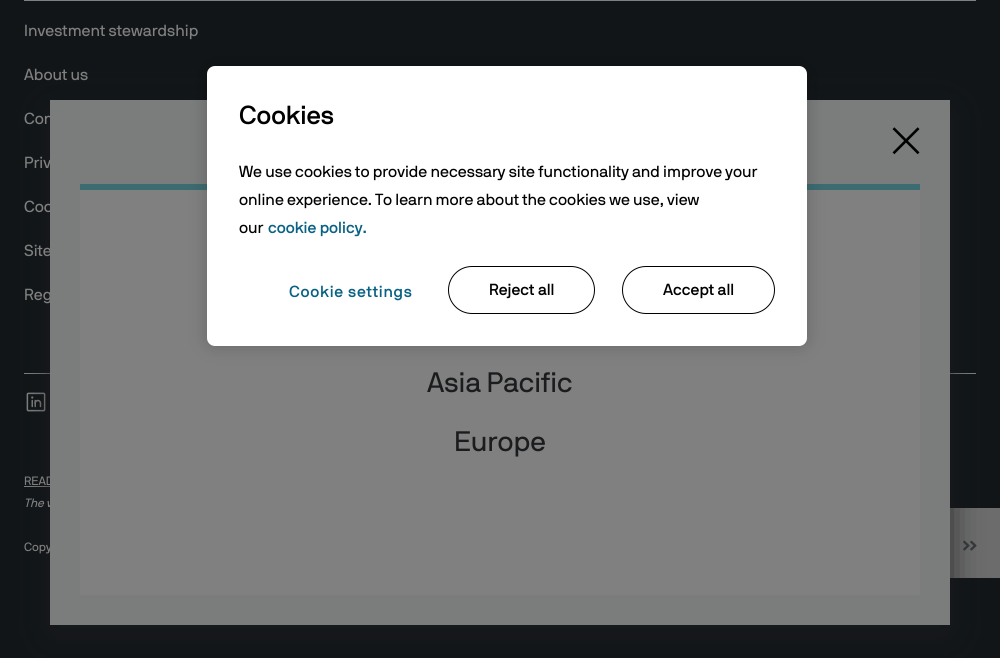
import math
import cairo



def draw_spaced(context, x, y, s, letter, word):
    context.move_to(x, y)
    for ch in s:
        context.show_text(ch)
        context.rel_move_to(letter + word * (ch == ' '), 0)


def rounded_rect(context, x, y, w, h, r):
    context.new_sub_path()
    for i, (u, v) in enumerate([(x + w - r, y + h - r), (x + r, y + h - r), (x + r, y + r), (x + w - r, y + r)]):
        context.arc(u, v, r, i * math.pi / 2, (i + 1) * math.pi / 2)
    context.close_path()


def draw_shadow(context, x, y, w, h, r, blur, alpha):
    context.push_group_with_content(cairo.Content.ALPHA)
    context.set_operator(cairo.Operator.SOURCE)
    for i in range(15, -16, -2):
        e = blur * i / 6
        if min(w, h) + 2 * e > 0:
            context.set_source_rgba(0, 0, 0, alpha * math.erfc((i - 1) / 8.5) / 2)
            rounded_rect(context, x - e, y - e, w + 2 * e, h + 2 * e, max(0, min(r + e + blur * .6, min(w, h) / 2 + e)))
            context.fill()
    context.mask(context.pop_group())


def draw_image(context, path, x, y, w, h):
    context.save()
    context.set_source_surface(cairo.ImageSurface.create_from_png(path), x, y)
    context.rectangle(x, y, w, h)
    context.fill()
    context.restore()


def draw(context):
    context.set_source_rgb(17 / 255, 21 / 255, 23 / 255)
    context.paint()
    context.set_source_rgb(128 / 255, 128 / 255, 128 / 255)
    context.rectangle(24, 0, 952, 1)
    context.fill()
    context.rectangle(24, 373, 952, 1)
    context.fill()
    draw_image(context, "images/1.png", 26, 392, 20, 20)
    context.rectangle(24, 486, 26, 1)
    context.fill()
    context.set_source_rgb(108 / 255, 108 / 255, 108 / 255)
    context.rectangle(950, 508, 50, 70)
    context.fill()
    draw_image(context, "images/3.png", 963, 540, 7, 11)
    draw_image(context, "images/3.png", 970, 540, 7, 11)
    context.set_source_rgb(26 / 255, 28 / 255, 30 / 255)
    draw_shadow(context, 54, 114, 892, 517, 0, 16.5, 1)
    context.select_font_face("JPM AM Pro")
    context.set_font_size(16)
    context.set_source_rgb(128 / 255, 128 / 255, 128 / 255)
    context.move_to(24, 36)
    context.show_text("Investment stewardship")
    context.move_to(24, 80)
    context.show_text("About us")
    context.move_to(24, 124)
    context.show_text("Con")
    context.move_to(24, 168)
    context.show_text("Priv")
    context.move_to(24, 212)
    context.show_text("Coo")
    context.move_to(24, 256)
    context.show_text("Site")
    context.move_to(24, 300)
    context.show_text("Reg")
    context.set_font_size(12)
    context.move_to(24, 485)
    context.show_text("READ")
    context.select_font_face("JPM AM Pro", cairo.FontSlant.ITALIC)
    context.move_to(24, 507)
    context.show_text("The v")
    context.select_font_face("JPM AM Pro")
    context.move_to(24, 551)
    context.show_text("Copy")
    context.set_source_rgb(123 / 255, 124 / 255, 124 / 255)
    context.rectangle(50, 100, 900, 525)
    context.fill()
    draw_image(context, "images/2.png", 892, 127, 28, 28)
    context.set_source_rgb(128 / 255, 128 / 255, 128 / 255)
    context.rectangle(80, 190, 840, 405)
    context.fill()
    context.set_source_rgb(60 / 255, 107 / 255, 113 / 255)
    context.rectangle(80, 184, 840, 6)
    context.fill()
    context.set_font_size(28)
    context.set_source_rgb(26 / 255, 28 / 255, 30 / 255)
    context.move_to(427, 392)
    context.show_text("Asia Pacific")
    context.move_to(454, 451)
    context.show_text("Europe")
    context.set_source_rgb(0, 0, 0)
    draw_shadow(context, 207, 66, 600, 280, 8, 9, 0.2)
    context.set_source_rgb(1, 1, 1)
    rounded_rect(context, 207, 66, 600, 280, 8)
    context.fill()
    context.select_font_face("JPM AM Pro Medium")
    context.set_font_size(26)
    context.set_source_rgb(0, 0, 0)
    context.move_to(239, 124)
    context.show_text("Cookies")
    context.select_font_face("JPM AM Pro")
    context.set_font_size(16)
    context.move_to(239, 177)
    context.show_text("We use cookies to provide necessary site functionality and improve your")
    context.move_to(239, 205)
    context.show_text("online experience. To learn more about the cookies we use, view")
    context.move_to(239, 233)
    context.show_text("our")
    context.select_font_face("JPM AM Pro Medium")
    context.set_source_rgb(9 / 255, 97 / 255, 131 / 255)
    context.move_to(268, 233)
    context.show_text("cookie policy.")
    draw_spaced(context, 289, 297, "Cookie settings", 0.75, 0)
    rounded_rect(context, 448.5, 266.5, 146, 47, 23.5)
    context.set_source_rgb(0, 0, 0)
    context.set_line_width(1)
    context.stroke()
    context.move_to(489, 295)
    context.show_text("Reject all")
    rounded_rect(context, 622.5, 266.5, 152, 47, 23.5)
    context.stroke()
    context.move_to(663, 295)
    context.show_text("Accept all")


surface = cairo.ImageSurface(cairo.Format.RGB24, 1000, 658)
context = cairo.Context(surface)
options = cairo.FontOptions()
options.set_hint_metrics(cairo.HintMetrics.OFF)
options.set_hint_style(cairo.HintStyle.NONE)
context.set_font_options(options)
context.set_miter_limit(4)
draw(context)
surface.write_to_png("out.png")
